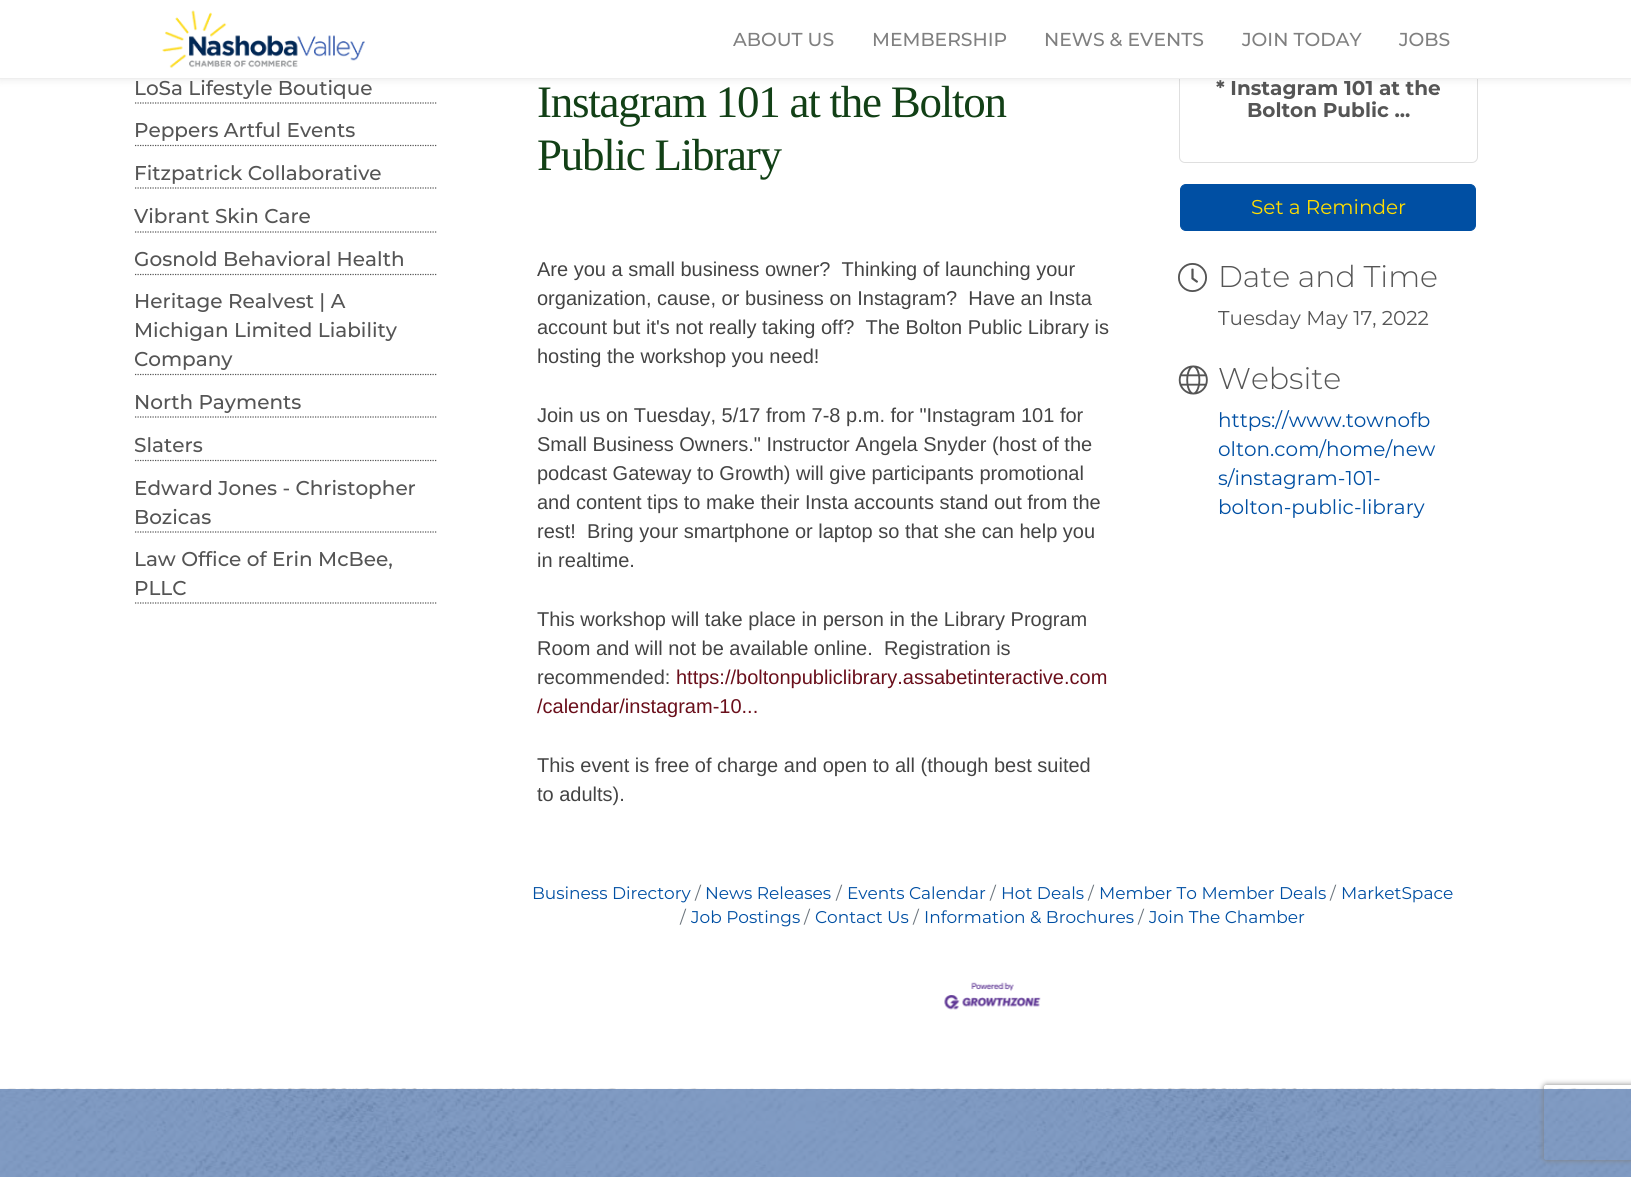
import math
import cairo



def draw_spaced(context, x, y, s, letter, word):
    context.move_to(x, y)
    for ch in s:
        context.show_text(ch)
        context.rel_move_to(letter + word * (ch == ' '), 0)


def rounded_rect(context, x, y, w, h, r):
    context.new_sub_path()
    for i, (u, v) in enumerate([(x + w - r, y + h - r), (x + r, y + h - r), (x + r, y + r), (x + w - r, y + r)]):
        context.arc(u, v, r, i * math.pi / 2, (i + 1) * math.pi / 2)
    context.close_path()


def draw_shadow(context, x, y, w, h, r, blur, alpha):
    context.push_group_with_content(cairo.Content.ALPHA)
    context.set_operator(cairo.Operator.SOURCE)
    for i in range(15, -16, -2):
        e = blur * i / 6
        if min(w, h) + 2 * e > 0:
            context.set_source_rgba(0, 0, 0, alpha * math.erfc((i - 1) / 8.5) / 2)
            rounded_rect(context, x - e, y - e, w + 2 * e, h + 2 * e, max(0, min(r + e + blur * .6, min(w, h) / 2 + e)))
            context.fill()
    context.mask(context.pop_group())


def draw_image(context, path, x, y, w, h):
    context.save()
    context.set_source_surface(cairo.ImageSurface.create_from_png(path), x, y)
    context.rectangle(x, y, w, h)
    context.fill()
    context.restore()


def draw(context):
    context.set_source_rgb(1, 1, 1)
    context.paint()
    rounded_rect(context, 1179.5, 56.5, 298, 106, 5.5)
    context.set_source_rgb(223 / 255, 223 / 255, 223 / 255)
    context.set_line_width(1)
    context.stroke()
    context.set_source_rgb(0, 0, 0)
    draw_shadow(context, 0, 0, 1631, 79, 0, 4.5, 0.1)
    context.set_source_rgb(1, 1, 1)
    context.rectangle(0, 0, 1631, 78)
    context.fill()
    context.set_source_rgb(238 / 255, 238 / 255, 238 / 255)
    context.rectangle(0, 78, 1631, 1)
    context.fill()
    draw_image(context, "images/1.png", 162, 10, 203, 58)
    context.new_path()
    context.move_to(135, 103)
    context.line_to(437.5, 103)
    context.set_source_rgb(85 / 255, 85 / 255, 85 / 255)
    context.set_line_width(1.2)
    context.set_dash([1.25, 1.25])
    context.stroke()
    context.new_path()
    context.move_to(135, 145.5)
    context.line_to(437.5, 145.5)
    context.stroke()
    context.new_path()
    context.move_to(135, 188)
    context.line_to(437.5, 188)
    context.stroke()
    context.new_path()
    context.move_to(135, 232)
    context.line_to(437.5, 232)
    context.stroke()
    context.new_path()
    context.move_to(135, 274.5)
    context.line_to(437.5, 274.5)
    context.stroke()
    context.new_path()
    context.move_to(135, 374.5)
    context.line_to(437.5, 374.5)
    context.stroke()
    context.new_path()
    context.move_to(135, 417)
    context.line_to(437.5, 417)
    context.stroke()
    context.new_path()
    context.move_to(135, 460.5)
    context.line_to(437.5, 460.5)
    context.stroke()
    context.new_path()
    context.move_to(135, 532)
    context.line_to(437.5, 532)
    context.stroke()
    context.new_path()
    context.move_to(135, 603)
    context.line_to(437.5, 603)
    context.stroke()
    context.set_source_rgb(0, 79 / 255, 163 / 255)
    rounded_rect(context, 1180.5, 184.5, 295, 46, 5.5)
    context.fill_preserve()
    context.set_line_width(1)
    context.set_dash([])
    context.stroke()
    draw_image(context, "images/2.png", 1178, 263, 29, 29)
    draw_image(context, "images/3.png", 1178, 365, 30, 30)
    draw_image(context, "images/4.png", 944, 982, 97, 28)
    draw_image(context, "images/5.png", 0, 1088, 1631, 89)
    context.save()
    context.set_fill_rule(cairo.FillRule.EVEN_ODD)
    context.new_path()
    context.move_to(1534, 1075)
    context.line_to(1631, 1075)
    context.line_to(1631, 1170)
    context.line_to(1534, 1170)
    context.close_path()
    context.move_to(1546.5, 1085)
    context.line_to(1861.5, 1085)
    context.curve_to(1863, 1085, 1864, 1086, 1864, 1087.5)
    context.line_to(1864, 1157.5)
    context.curve_to(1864, 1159, 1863, 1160, 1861.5, 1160)
    context.line_to(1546.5, 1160)
    context.curve_to(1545, 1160, 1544, 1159, 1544, 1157.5)
    context.line_to(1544, 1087.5)
    context.curve_to(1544, 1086, 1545, 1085, 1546.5, 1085)
    context.close_path()
    context.clip()
    context.set_source_rgb(128 / 255, 128 / 255, 128 / 255)
    draw_shadow(context, 1544, 1085, 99, 75, 2.5, 3, 1)
    context.restore()
    context.select_font_face("Montserrat Medium")
    context.set_font_size(18.75)
    context.set_source_rgb(128 / 255, 128 / 255, 128 / 255)
    context.move_to(733, 46)
    context.show_text("ABOUT US")
    context.move_to(872, 46)
    context.show_text("MEMBERSHIP")
    context.move_to(1044, 46)
    context.show_text("NEWS & EVENTS")
    context.move_to(1242, 46)
    context.show_text("JOIN TODAY")
    context.move_to(1399, 46)
    context.show_text("JOBS")
    context.set_font_size(20)
    context.set_source_rgb(85 / 255, 85 / 255, 85 / 255)
    context.move_to(134, 95)
    context.show_text("LoSa Lifestyle Boutique")
    context.move_to(134, 137)
    context.show_text("Peppers Artful Events")
    context.move_to(134, 180)
    context.show_text("Fitzpatrick Collaborative")
    context.move_to(134, 223)
    context.show_text("Vibrant Skin Care")
    context.move_to(134, 266)
    context.show_text("Gosnold Behavioral Health")
    context.move_to(134, 308)
    context.show_text("Heritage Realvest | A")
    context.move_to(134, 337)
    context.show_text("Michigan Limited Liability")
    context.move_to(134, 366)
    context.show_text("Company")
    context.move_to(134, 409)
    context.show_text("North Payments")
    context.move_to(134, 452)
    context.show_text("Slaters")
    context.move_to(134, 495)
    context.show_text("Edward Jones - Christopher")
    context.move_to(134, 524)
    context.show_text("Bozicas")
    context.move_to(134, 566)
    context.show_text("Law Office of Erin McBee,")
    context.move_to(134, 595)
    context.show_text("PLLC")
    context.select_font_face("Liberation Serif")
    context.set_font_size(45)
    context.set_source_rgb(18 / 255, 64 / 255, 22 / 255)
    draw_spaced(context, 537, 117, "Instagram 101 at the Bolton", -1.25, 0)
    draw_spaced(context, 537, 170, "Public Library", -1.25, 0)
    context.select_font_face("Liberation Sans")
    context.set_font_size(20)
    context.set_source_rgb(68 / 255, 68 / 255, 68 / 255)
    context.move_to(537, 276)
    context.show_text("Are you a small business owner?  Thinking of launching your")
    context.move_to(537, 305)
    context.show_text("organization, cause, or business on Instagram?  Have an Insta")
    context.move_to(537, 334)
    context.show_text("account but it's not really taking off?  The Bolton Public Library is")
    context.move_to(537, 363)
    context.show_text("hosting the workshop you need!")
    context.move_to(537, 422)
    context.show_text("Join us on Tuesday, 5/17 from 7-8 p.m. for \"Instagram 101 for")
    context.move_to(537, 451)
    context.show_text("Small Business Owners.\" Instructor Angela Snyder (host of the")
    context.move_to(537, 480)
    context.show_text("podcast Gateway to Growth) will give participants promotional")
    context.move_to(537, 509)
    context.show_text("and content tips to make their Insta accounts stand out from the")
    context.move_to(537, 538)
    context.show_text("rest!  Bring your smartphone or laptop so that she can help you")
    context.move_to(537, 567)
    context.show_text("in realtime.")
    context.move_to(537, 626)
    context.show_text("This workshop will take place in person in the Library Program")
    context.move_to(537, 655)
    context.show_text("Room and will not be available online.  Registration is")
    context.move_to(537, 684)
    context.show_text("recommended:")
    context.set_source_rgb(106 / 255, 15 / 255, 27 / 255)
    context.move_to(676, 684)
    context.show_text("https://boltonpubliclibrary.assabetinteractive.com")
    context.move_to(537, 713)
    context.show_text("/calendar/instagram-10...")
    context.set_source_rgb(68 / 255, 68 / 255, 68 / 255)
    context.move_to(537, 772)
    context.show_text("This event is free of charge and open to all (though best suited")
    context.move_to(537, 801)
    context.show_text("to adults).")
    context.select_font_face("Montserrat", cairo.FontSlant.NORMAL, cairo.FontWeight.BOLD)
    context.set_source_rgb(85 / 255, 85 / 255, 85 / 255)
    context.move_to(1216, 95)
    context.show_text("* Instagram 101 at the")
    context.move_to(1247, 117)
    context.show_text("Bolton Public ...")
    context.select_font_face("Montserrat")
    context.set_source_rgb(1, 221 / 255, 0)
    context.move_to(1251, 214)
    context.show_text("Set a Reminder")
    context.select_font_face("Montserrat Light")
    context.set_font_size(30)
    context.set_source_rgb(85 / 255, 85 / 255, 85 / 255)
    context.move_to(1218, 287)
    context.show_text("Date and Time")
    context.select_font_face("Montserrat")
    context.set_font_size(20)
    context.move_to(1218, 325)
    context.show_text("Tuesday May 17, 2022")
    context.select_font_face("Montserrat Light")
    context.set_font_size(30)
    context.move_to(1218, 389)
    context.show_text("Website")
    context.select_font_face("Montserrat")
    context.set_font_size(20)
    context.set_source_rgb(0, 79 / 255, 163 / 255)
    context.move_to(1218, 427)
    context.show_text("https://www.townofb")
    context.move_to(1218, 456)
    context.show_text("olton.com/home/new")
    context.move_to(1218, 485)
    context.show_text("s/instagram-101-")
    context.move_to(1218, 514)
    context.show_text("bolton-public-library")
    context.set_font_size(17)
    context.move_to(532, 899)
    context.show_text("Business Directory")
    context.set_source_rgb(108 / 255, 117 / 255, 125 / 255)
    context.move_to(695, 899)
    context.show_text("/")
    context.set_source_rgb(0, 79 / 255, 163 / 255)
    context.move_to(705, 899)
    context.show_text("News Releases")
    context.set_source_rgb(108 / 255, 117 / 255, 125 / 255)
    context.move_to(836, 899)
    context.show_text("/")
    context.set_source_rgb(0, 79 / 255, 163 / 255)
    context.move_to(847, 899)
    context.show_text("Events Calendar")
    context.set_source_rgb(108 / 255, 117 / 255, 125 / 255)
    context.move_to(990, 899)
    context.show_text("/")
    context.set_source_rgb(0, 79 / 255, 163 / 255)
    context.move_to(1001, 899)
    context.show_text("Hot Deals")
    context.set_source_rgb(108 / 255, 117 / 255, 125 / 255)
    context.move_to(1088, 899)
    context.show_text("/")
    context.set_source_rgb(0, 79 / 255, 163 / 255)
    context.move_to(1099, 899)
    context.show_text("Member To Member Deals")
    context.set_source_rgb(108 / 255, 117 / 255, 125 / 255)
    context.move_to(1330, 899)
    context.show_text("/")
    context.set_source_rgb(0, 79 / 255, 163 / 255)
    context.move_to(1341, 899)
    context.show_text("MarketSpace")
    context.set_source_rgb(108 / 255, 117 / 255, 125 / 255)
    context.move_to(680, 923)
    context.show_text("/")
    context.set_source_rgb(0, 79 / 255, 163 / 255)
    context.move_to(691, 923)
    context.show_text("Job Postings")
    context.set_source_rgb(108 / 255, 117 / 255, 125 / 255)
    context.move_to(804, 923)
    context.show_text("/")
    context.set_source_rgb(0, 79 / 255, 163 / 255)
    context.move_to(815, 923)
    context.show_text("Contact Us")
    context.set_source_rgb(108 / 255, 117 / 255, 125 / 255)
    context.move_to(913, 923)
    context.show_text("/")
    context.set_source_rgb(0, 79 / 255, 163 / 255)
    context.move_to(924, 923)
    context.show_text("Information & Brochures")
    context.set_source_rgb(108 / 255, 117 / 255, 125 / 255)
    context.move_to(1138, 923)
    context.show_text("/")
    context.set_source_rgb(0, 79 / 255, 163 / 255)
    context.move_to(1149, 923)
    context.show_text("Join The Chamber")


surface = cairo.ImageSurface(cairo.Format.RGB24, 1631, 1177)
context = cairo.Context(surface)
options = cairo.FontOptions()
options.set_hint_metrics(cairo.HintMetrics.OFF)
options.set_hint_style(cairo.HintStyle.NONE)
context.set_font_options(options)
context.set_miter_limit(4)
draw(context)
surface.write_to_png("out.png")
